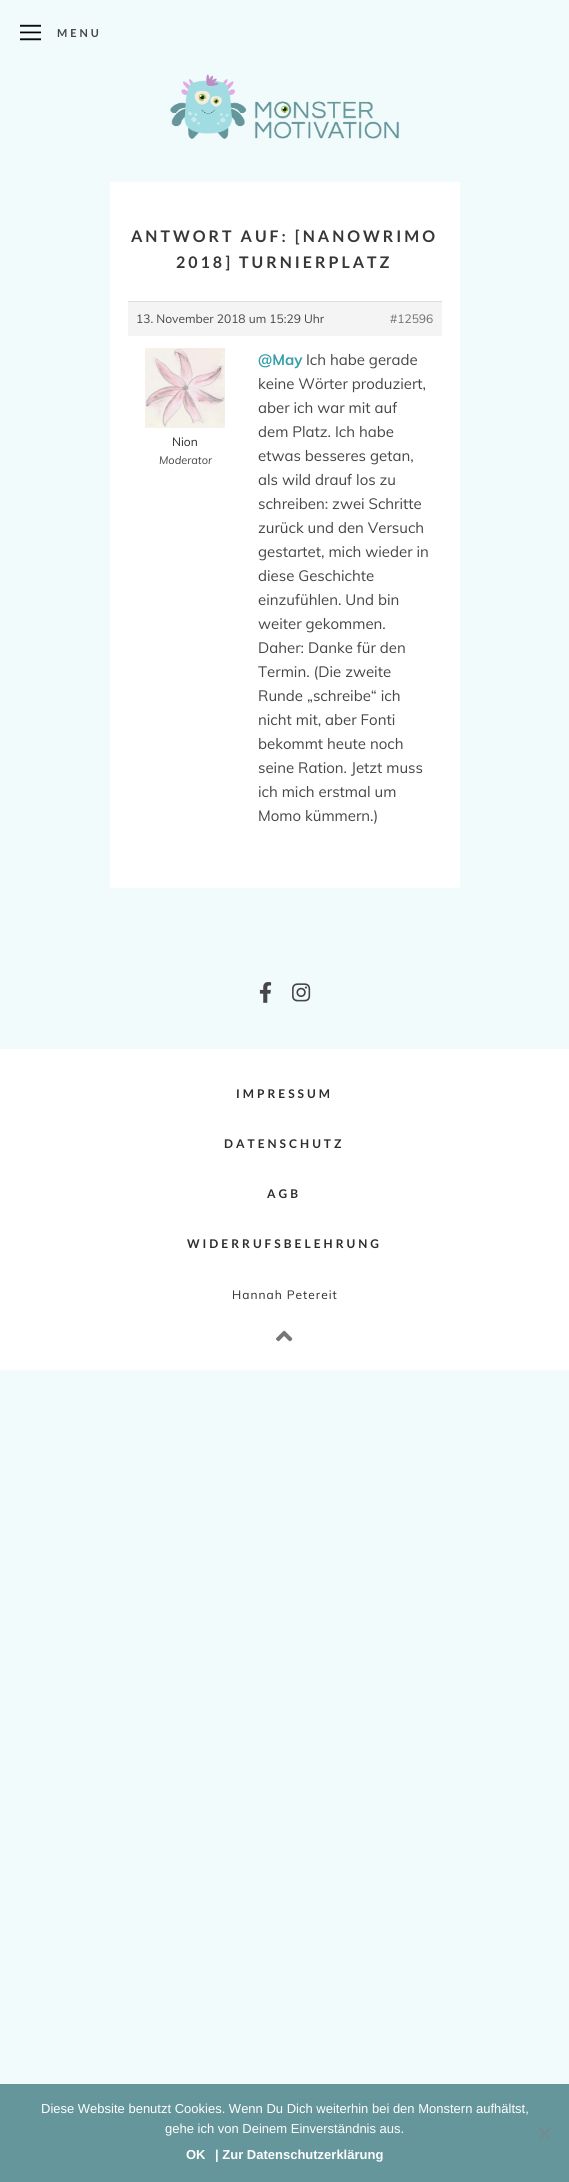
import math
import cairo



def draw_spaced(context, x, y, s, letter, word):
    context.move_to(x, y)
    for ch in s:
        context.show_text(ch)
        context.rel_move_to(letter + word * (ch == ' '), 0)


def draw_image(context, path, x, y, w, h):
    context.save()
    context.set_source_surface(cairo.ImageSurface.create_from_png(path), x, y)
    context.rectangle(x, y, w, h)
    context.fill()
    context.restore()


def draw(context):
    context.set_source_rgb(241 / 255, 251 / 255, 252 / 255)
    context.paint()
    draw_image(context, "images/1.png", 20, 24, 21, 17)
    draw_image(context, "images/2.png", 170, 74, 229, 65)
    context.set_source_rgb(1, 1, 1)
    context.rectangle(110, 182, 350, 706)
    context.fill()
    context.set_source_rgb(244 / 255, 244 / 255, 244 / 255)
    context.rectangle(128, 302, 314, 34)
    context.fill()
    context.set_source_rgb(221 / 255, 221 / 255, 221 / 255)
    context.rectangle(128, 301, 314, 1)
    context.fill()
    draw_image(context, "images/3.png", 145, 348, 80, 80)
    draw_image(context, "images/4.png", 259, 982, 13, 21)
    draw_image(context, "images/5.png", 292, 983, 19, 19)
    context.set_source_rgb(1, 1, 1)
    context.rectangle(0, 1049, 569, 321)
    context.fill()
    draw_image(context, "images/6.png", 276, 1330, 17, 12)
    context.set_source_rgb(100 / 255, 150 / 255, 155 / 255)
    context.rectangle(0, 2084, 569, 98)
    context.fill()
    context.set_source_rgb(114 / 255, 139 / 255, 142 / 255)
    context.new_path()
    context.move_to(549.5, 2127.5)
    context.line_to(551, 2129)
    context.line_to(540.5, 2139.5)
    context.line_to(539, 2138)
    context.close_path()
    context.fill()
    context.new_path()
    context.move_to(539, 2129)
    context.line_to(540.5, 2127.5)
    context.line_to(551, 2138)
    context.line_to(549.5, 2139.5)
    context.close_path()
    context.fill()
    context.select_font_face("Lato", cairo.FontSlant.NORMAL, cairo.FontWeight.BOLD)
    context.set_font_size(11)
    context.set_source_rgb(70 / 255, 70 / 255, 70 / 255)
    draw_spaced(context, 57, 37, "MENU", 3, 0)
    context.set_font_size(16)
    context.set_source_rgb(55 / 255, 55 / 255, 55 / 255)
    draw_spaced(context, 131, 242, "ANTWORT AUF: [NANOWRIMO", 3, 0)
    draw_spaced(context, 176, 268, "2018] TURNIERPLATZ", 3, 0)
    context.select_font_face("Muli")
    context.set_font_size(12)
    context.set_source_rgb(70 / 255, 70 / 255, 70 / 255)
    context.move_to(136, 323)
    context.show_text("13. November 2018 um 15:29 Uhr")
    context.set_source_rgb(112 / 255, 112 / 255, 112 / 255)
    context.move_to(390, 323)
    context.show_text("#12596")
    context.set_source_rgb(45 / 255, 45 / 255, 45 / 255)
    context.move_to(172, 446)
    context.show_text("Nion")
    context.select_font_face("Muli", cairo.FontSlant.ITALIC)
    context.set_font_size(11)
    context.set_source_rgb(70 / 255, 70 / 255, 70 / 255)
    context.move_to(159, 464)
    context.show_text("Moderator")
    context.select_font_face("Muli", cairo.FontSlant.NORMAL, cairo.FontWeight.BOLD)
    context.set_font_size(15)
    context.set_source_rgb(55 / 255, 159 / 255, 169 / 255)
    context.move_to(258, 365)
    context.show_text("@May")
    context.select_font_face("Muli")
    context.set_source_rgb(70 / 255, 70 / 255, 70 / 255)
    context.move_to(306, 365)
    context.show_text("Ich habe gerade")
    context.move_to(258, 389)
    context.show_text("keine Wörter produziert,")
    context.move_to(258, 413)
    context.show_text("aber ich war mit auf")
    context.move_to(258, 437)
    context.show_text("dem Platz. Ich habe")
    context.move_to(258, 461)
    context.show_text("etwas besseres getan,")
    context.move_to(258, 485)
    context.show_text("als wild drauf los zu")
    context.move_to(258, 509)
    context.show_text("schreiben: zwei Schritte")
    context.move_to(258, 533)
    context.show_text("zurück und den Versuch")
    context.move_to(258, 557)
    context.show_text("gestartet, mich wieder in")
    context.move_to(258, 581)
    context.show_text("diese Geschichte")
    context.move_to(258, 605)
    context.show_text("einzufühlen. Und bin")
    context.move_to(258, 629)
    context.show_text("weiter gekommen.")
    context.move_to(258, 653)
    context.show_text("Daher: Danke für den")
    context.move_to(258, 677)
    context.show_text("Termin. (Die zweite")
    context.move_to(258, 701)
    context.show_text("Runde „schreibe“ ich")
    context.move_to(258, 725)
    context.show_text("nicht mit, aber Fonti")
    context.move_to(258, 749)
    context.show_text("bekommt heute noch")
    context.move_to(258, 773)
    context.show_text("seine Ration. Jetzt muss")
    context.move_to(258, 797)
    context.show_text("ich mich erstmal um")
    context.move_to(258, 821)
    context.show_text("Momo kümmern.)")
    context.select_font_face("Lato", cairo.FontSlant.NORMAL, cairo.FontWeight.BOLD)
    context.set_font_size(12)
    context.set_source_rgb(45 / 255, 45 / 255, 45 / 255)
    draw_spaced(context, 236, 1098, "IMPRESSUM", 3, 0)
    draw_spaced(context, 224, 1148, "DATENSCHUTZ", 3, 0)
    draw_spaced(context, 267, 1198, "AGB", 3, 0)
    draw_spaced(context, 187, 1248, "WIDERRUFSBELEHRUNG", 3, 0)
    context.select_font_face("Muli")
    draw_spaced(context, 232, 1299, "Hannah Petereit", 1, 0)
    context.select_font_face("Liberation Sans")
    context.set_font_size(13)
    context.set_source_rgb(1, 1, 1)
    context.move_to(41, 2113)
    context.show_text("Diese Website benutzt Cookies. Wenn Du Dich weiterhin bei den Monstern aufhältst,")
    context.move_to(165, 2133)
    context.show_text("gehe ich von Deinem Einverständnis aus.")
    context.select_font_face("Liberation Sans", cairo.FontSlant.NORMAL, cairo.FontWeight.BOLD)
    context.move_to(186, 2159)
    context.show_text("OK")
    context.move_to(215, 2159)
    context.show_text("| Zur Datenschutzerklärung")


surface = cairo.ImageSurface(cairo.Format.RGB24, 569, 2182)
context = cairo.Context(surface)
options = cairo.FontOptions()
options.set_hint_metrics(cairo.HintMetrics.OFF)
options.set_hint_style(cairo.HintStyle.NONE)
context.set_font_options(options)
context.set_miter_limit(4)
draw(context)
surface.write_to_png("out.png")
